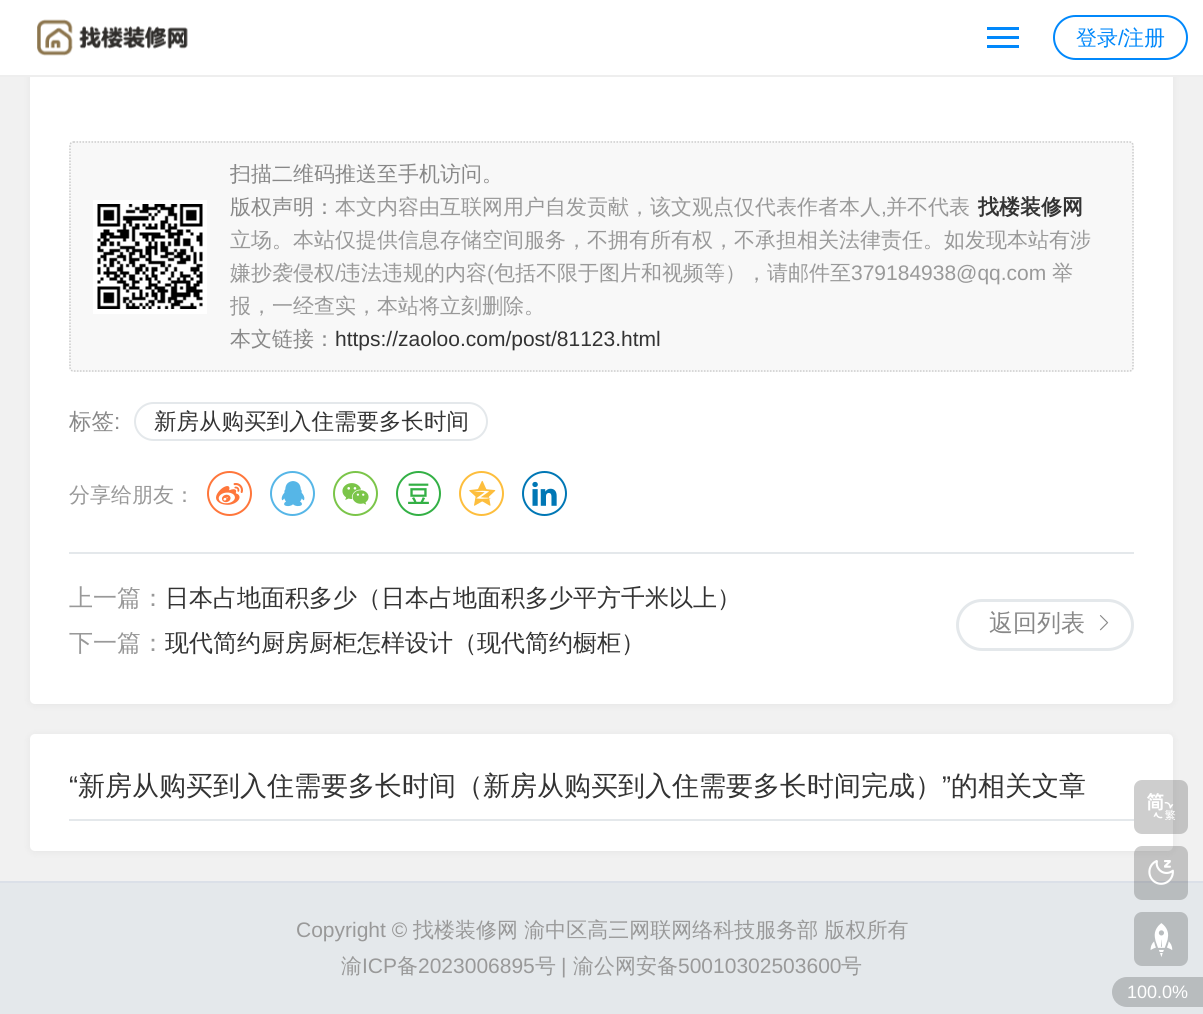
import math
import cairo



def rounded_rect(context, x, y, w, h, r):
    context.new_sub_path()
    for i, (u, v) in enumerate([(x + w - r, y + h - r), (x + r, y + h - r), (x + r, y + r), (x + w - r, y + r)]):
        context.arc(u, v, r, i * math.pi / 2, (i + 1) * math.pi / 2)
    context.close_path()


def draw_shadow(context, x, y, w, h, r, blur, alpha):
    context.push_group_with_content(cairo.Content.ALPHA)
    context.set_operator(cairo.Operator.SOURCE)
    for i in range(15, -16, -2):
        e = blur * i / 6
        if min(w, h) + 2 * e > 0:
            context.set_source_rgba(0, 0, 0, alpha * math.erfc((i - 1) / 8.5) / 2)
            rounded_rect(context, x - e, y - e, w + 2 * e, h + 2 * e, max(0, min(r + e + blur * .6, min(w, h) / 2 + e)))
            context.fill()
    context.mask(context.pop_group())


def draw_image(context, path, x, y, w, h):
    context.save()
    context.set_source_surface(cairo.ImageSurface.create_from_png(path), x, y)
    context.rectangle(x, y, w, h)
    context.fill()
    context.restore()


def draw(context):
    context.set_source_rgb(228 / 255, 232 / 255, 235 / 255)
    context.paint()
    context.set_source_rgb(241 / 255, 241 / 255, 241 / 255)
    context.rectangle(0, 77, 1203, 804)
    context.fill()
    context.set_source_rgb(0, 0, 0)
    draw_shadow(context, 30, -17, 1143, 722, 5, 4, 0.05)
    context.set_source_rgb(1, 1, 1)
    rounded_rect(context, 30, -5, 1143, 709, 5)
    context.fill()
    context.rectangle(0, 0, 1203, 75)
    context.fill()
    context.set_source_rgb(238 / 255, 238 / 255, 238 / 255)
    context.rectangle(0, 75, 1203, 2)
    context.fill()
    draw_image(context, "images/1.png", 37, 19, 151, 37)
    context.set_source_rgb(1 / 255, 136 / 255, 251 / 255)
    context.rectangle(987, 27, 32, 3)
    context.fill()
    context.rectangle(987, 36, 32, 3)
    context.fill()
    context.rectangle(987, 45, 32, 3)
    context.fill()
    rounded_rect(context, 1054, 16, 133, 43, 21.5)
    context.stroke()
    context.set_source_rgb(228 / 255, 232 / 255, 235 / 255)
    context.rectangle(69, 552, 1065, 2)
    context.fill()
    context.set_source_rgb(248 / 255, 248 / 255, 248 / 255)
    rounded_rect(context, 69, 141, 1065, 231, 5)
    context.fill()
    context.new_path()
    context.move_to(73.5, 142)
    context.line_to(1129.5, 142)
    context.curve_to(1131.5, 142, 1133, 143.5, 1133, 145.5)
    context.line_to(1133, 367.5)
    context.curve_to(1133, 369.5, 1131.5, 371, 1129.5, 371)
    context.line_to(73.5, 371)
    context.curve_to(71.5, 371, 70, 369.5, 70, 367.5)
    context.line_to(70, 145.5)
    context.curve_to(70, 143.5, 71.5, 142, 73.5, 142)
    context.close_path()
    context.set_source_rgb(204 / 255, 204 / 255, 204 / 255)
    context.set_line_width(1.5)
    context.set_dash([1.5, 1.5])
    context.stroke()
    context.set_source_rgb(1, 1, 1)
    context.rectangle(93, 200, 114, 114)
    context.fill()
    draw_image(context, "images/2.png", 97, 204, 106, 105)
    rounded_rect(context, 135, 403, 352, 37, 18.5)
    context.set_source_rgb(228 / 255, 232 / 255, 235 / 255)
    context.set_line_width(2)
    context.set_dash([])
    context.stroke()
    context.arc(229.5, 493.5, 21.5, 0, 2 * math.pi)
    context.set_source_rgb(1, 118 / 255, 59 / 255)
    context.stroke()
    draw_image(context, "images/3.png", 216, 483, 27, 22)
    context.arc(292.5, 493.5, 21.5, 0, 2 * math.pi)
    context.set_source_rgb(86 / 255, 182 / 255, 231 / 255)
    context.stroke()
    draw_image(context, "images/4.png", 281, 481, 24, 26)
    context.arc(355.5, 493.5, 21.5, 0, 2 * math.pi)
    context.set_source_rgb(123 / 255, 197 / 255, 73 / 255)
    context.stroke()
    draw_image(context, "images/5.png", 342, 483, 27, 22)
    context.arc(418.5, 493.5, 21.5, 0, 2 * math.pi)
    context.set_source_rgb(51 / 255, 176 / 255, 69 / 255)
    context.stroke()
    draw_image(context, "images/6.png", 408, 483, 21, 21)
    context.arc(481.5, 493.5, 21.5, 0, 2 * math.pi)
    context.set_source_rgb(253 / 255, 190 / 255, 61 / 255)
    context.stroke()
    draw_image(context, "images/7.png", 469, 480, 27, 26)
    context.arc(544.5, 493.5, 21.5, 0, 2 * math.pi)
    context.set_source_rgb(0, 119 / 255, 181 / 255)
    context.stroke()
    draw_image(context, "images/8.png", 532, 481, 25, 25)
    rounded_rect(context, 957.5, 600.5, 175, 49, 24.5)
    context.set_source_rgb(228 / 255, 232 / 255, 235 / 255)
    context.set_line_width(3)
    context.stroke()
    draw_image(context, "images/9.png", 1099, 615, 10, 16)
    context.set_source_rgb(0, 0, 0)
    draw_shadow(context, 30, 735, 1143, 117, 5, 4, 0.05)
    context.set_source_rgb(1, 1, 1)
    rounded_rect(context, 30, 734, 1143, 117, 5)
    context.fill()
    context.set_source_rgb(228 / 255, 232 / 255, 235 / 255)
    context.rectangle(69, 819, 1065, 2)
    context.fill()
    context.set_source_rgb(219 / 255, 224 / 255, 232 / 255)
    context.rectangle(0, 881, 1203, 2)
    context.fill()
    context.set_source_rgba(10 / 255, 10 / 255, 10 / 255, 0.2)
    rounded_rect(context, 1134, 780, 54, 54, 8)
    context.fill()
    draw_image(context, "images/10.png", 1147, 793, 29, 27)
    rounded_rect(context, 1134, 846, 54, 54, 8)
    context.fill()
    draw_image(context, "images/11.png", 1148, 860, 26, 25)
    context.set_source_rgb(184 / 255, 188 / 255, 190 / 255)
    rounded_rect(context, 1134, 912, 54, 54, 8)
    context.fill()
    draw_image(context, "images/12.png", 1150, 923, 23, 34)
    context.new_path()
    context.move_to(1127, 977)
    context.line_to(1203, 977)
    context.line_to(1203, 1007)
    context.line_to(1127, 1007)
    context.curve_to(1118.5, 1007, 1112, 1000.5, 1112, 992)
    context.curve_to(1112, 983.5, 1118.5, 977, 1127, 977)
    context.close_path()
    context.fill()
    context.select_font_face("WenQuanYi Zen Hei Medium")
    context.set_font_size(21)
    context.set_source_rgb(1 / 255, 136 / 255, 251 / 255)
    context.move_to(1076, 45)
    context.show_text("登录")
    context.select_font_face("Liberation Sans")
    context.move_to(1118, 45)
    context.show_text("/")
    context.select_font_face("WenQuanYi Zen Hei Medium")
    context.move_to(1123, 45)
    context.show_text("注册")
    context.set_source_rgb(136 / 255, 136 / 255, 136 / 255)
    context.move_to(230, 181)
    context.show_text("扫描二维码推送至手机访问。")
    context.move_to(230, 214)
    context.show_text("版权声明：")
    context.set_source_rgb(153 / 255, 153 / 255, 153 / 255)
    context.move_to(335, 214)
    context.show_text("本文内容由互联网用户自发贡献，该文观点仅代表作者本人")
    context.select_font_face("Liberation Sans")
    context.move_to(881, 214)
    context.show_text(",")
    context.select_font_face("WenQuanYi Zen Hei Medium")
    context.move_to(886, 214)
    context.show_text("并不代表")
    context.select_font_face("WenQuanYi Zen Hei", cairo.FontSlant.NORMAL, cairo.FontWeight.BOLD)
    context.set_source_rgb(51 / 255, 51 / 255, 51 / 255)
    context.move_to(978, 214)
    context.show_text("找楼装修网")
    context.select_font_face("WenQuanYi Zen Hei Medium")
    context.set_source_rgb(153 / 255, 153 / 255, 153 / 255)
    context.move_to(230, 247)
    context.show_text("立场。本站仅提供信息存储空间服务，不拥有所有权，不承担相关法律责任。如发现本站有涉")
    context.move_to(230, 280)
    context.show_text("嫌抄袭侵权")
    context.select_font_face("Liberation Sans")
    context.move_to(335, 280)
    context.show_text("/")
    context.select_font_face("WenQuanYi Zen Hei Medium")
    context.move_to(340, 280)
    context.show_text("违法违规的内容")
    context.select_font_face("Liberation Sans")
    context.move_to(487, 280)
    context.show_text("(")
    context.select_font_face("WenQuanYi Zen Hei Medium")
    context.move_to(494, 280)
    context.show_text("包括不限于图片和视频等），请邮件至")
    context.select_font_face("Liberation Sans")
    context.move_to(851, 280)
    context.show_text("379184938@qq.com")
    context.select_font_face("WenQuanYi Zen Hei Medium")
    context.move_to(1052, 280)
    context.show_text("举")
    context.move_to(230, 313)
    context.show_text("报，一经查实，本站将立刻删除。")
    context.set_source_rgb(136 / 255, 136 / 255, 136 / 255)
    context.move_to(230, 346)
    context.show_text("本文链接：")
    context.select_font_face("Liberation Sans")
    context.set_source_rgb(51 / 255, 51 / 255, 51 / 255)
    context.move_to(335, 346)
    context.show_text("https://zaoloo.com/post/81123.html")
    context.select_font_face("WenQuanYi Zen Hei Medium")
    context.set_font_size(22.5)
    context.set_source_rgb(136 / 255, 136 / 255, 136 / 255)
    context.move_to(69, 429)
    context.show_text("标签")
    context.select_font_face("Liberation Sans")
    context.move_to(114, 429)
    context.show_text(":")
    context.select_font_face("WenQuanYi Zen Hei Medium")
    context.set_source_rgb(51 / 255, 51 / 255, 51 / 255)
    context.move_to(154, 429)
    context.show_text("新房从购买到入住需要多长时间")
    context.set_font_size(21)
    context.set_source_rgb(153 / 255, 153 / 255, 153 / 255)
    context.move_to(69, 502)
    context.show_text("分享给朋友：")
    context.set_font_size(24)
    context.move_to(69, 606)
    context.show_text("上一篇：")
    context.set_source_rgb(51 / 255, 51 / 255, 51 / 255)
    context.move_to(165, 606)
    context.show_text("日本占地面积多少（日本占地面积多少平方千米以上）")
    context.set_source_rgb(136 / 255, 136 / 255, 136 / 255)
    context.move_to(989, 631)
    context.show_text("返回列表")
    context.set_source_rgb(153 / 255, 153 / 255, 153 / 255)
    context.move_to(69, 651)
    context.show_text("下一篇：")
    context.set_source_rgb(51 / 255, 51 / 255, 51 / 255)
    context.move_to(165, 651)
    context.show_text("现代简约厨房厨柜怎样设计（现代简约橱柜）")
    context.select_font_face("Liberation Sans")
    context.set_font_size(27)
    context.move_to(69, 795)
    context.show_text("“")
    context.select_font_face("WenQuanYi Zen Hei Medium")
    context.move_to(78, 795)
    context.show_text("新房从购买到入住需要多长时间（新房从购买到入住需要多长时间完成）")
    context.select_font_face("Liberation Sans")
    context.move_to(942, 795)
    context.show_text("”")
    context.select_font_face("WenQuanYi Zen Hei Medium")
    context.move_to(951, 795)
    context.show_text("的相关文章")
    context.select_font_face("Liberation Sans")
    context.set_font_size(21)
    context.set_source_rgb(153 / 255, 153 / 255, 153 / 255)
    context.move_to(296, 937)
    context.show_text("Copyright ©")
    context.select_font_face("WenQuanYi Zen Hei Medium")
    context.move_to(413, 937)
    context.show_text("找楼装修网 渝中区高三网联网络科技服务部 版权所有")
    context.move_to(341, 973)
    context.show_text("渝")
    context.select_font_face("Liberation Sans")
    context.move_to(362, 973)
    context.show_text("ICP")
    context.select_font_face("WenQuanYi Zen Hei Medium")
    context.move_to(397, 973)
    context.show_text("备")
    context.select_font_face("Liberation Sans")
    context.move_to(418, 973)
    context.show_text("2023006895")
    context.select_font_face("WenQuanYi Zen Hei Medium")
    context.move_to(535, 973)
    context.show_text("号")
    context.select_font_face("Liberation Sans")
    context.move_to(561, 973)
    context.show_text("|")
    context.select_font_face("WenQuanYi Zen Hei Medium")
    context.move_to(573, 973)
    context.show_text("渝公网安备")
    context.select_font_face("Liberation Sans")
    context.move_to(678, 973)
    context.show_text("50010302503600")
    context.select_font_face("WenQuanYi Zen Hei Medium")
    context.move_to(841, 973)
    context.show_text("号")
    context.select_font_face("Liberation Sans")
    context.set_font_size(18)
    context.set_source_rgb(1, 1, 1)
    context.move_to(1127, 998)
    context.show_text("100.0%")


surface = cairo.ImageSurface(cairo.Format.RGB24, 1203, 1014)
context = cairo.Context(surface)
options = cairo.FontOptions()
options.set_hint_metrics(cairo.HintMetrics.OFF)
options.set_hint_style(cairo.HintStyle.NONE)
context.set_font_options(options)
context.set_miter_limit(4)
draw(context)
surface.write_to_png("out.png")
